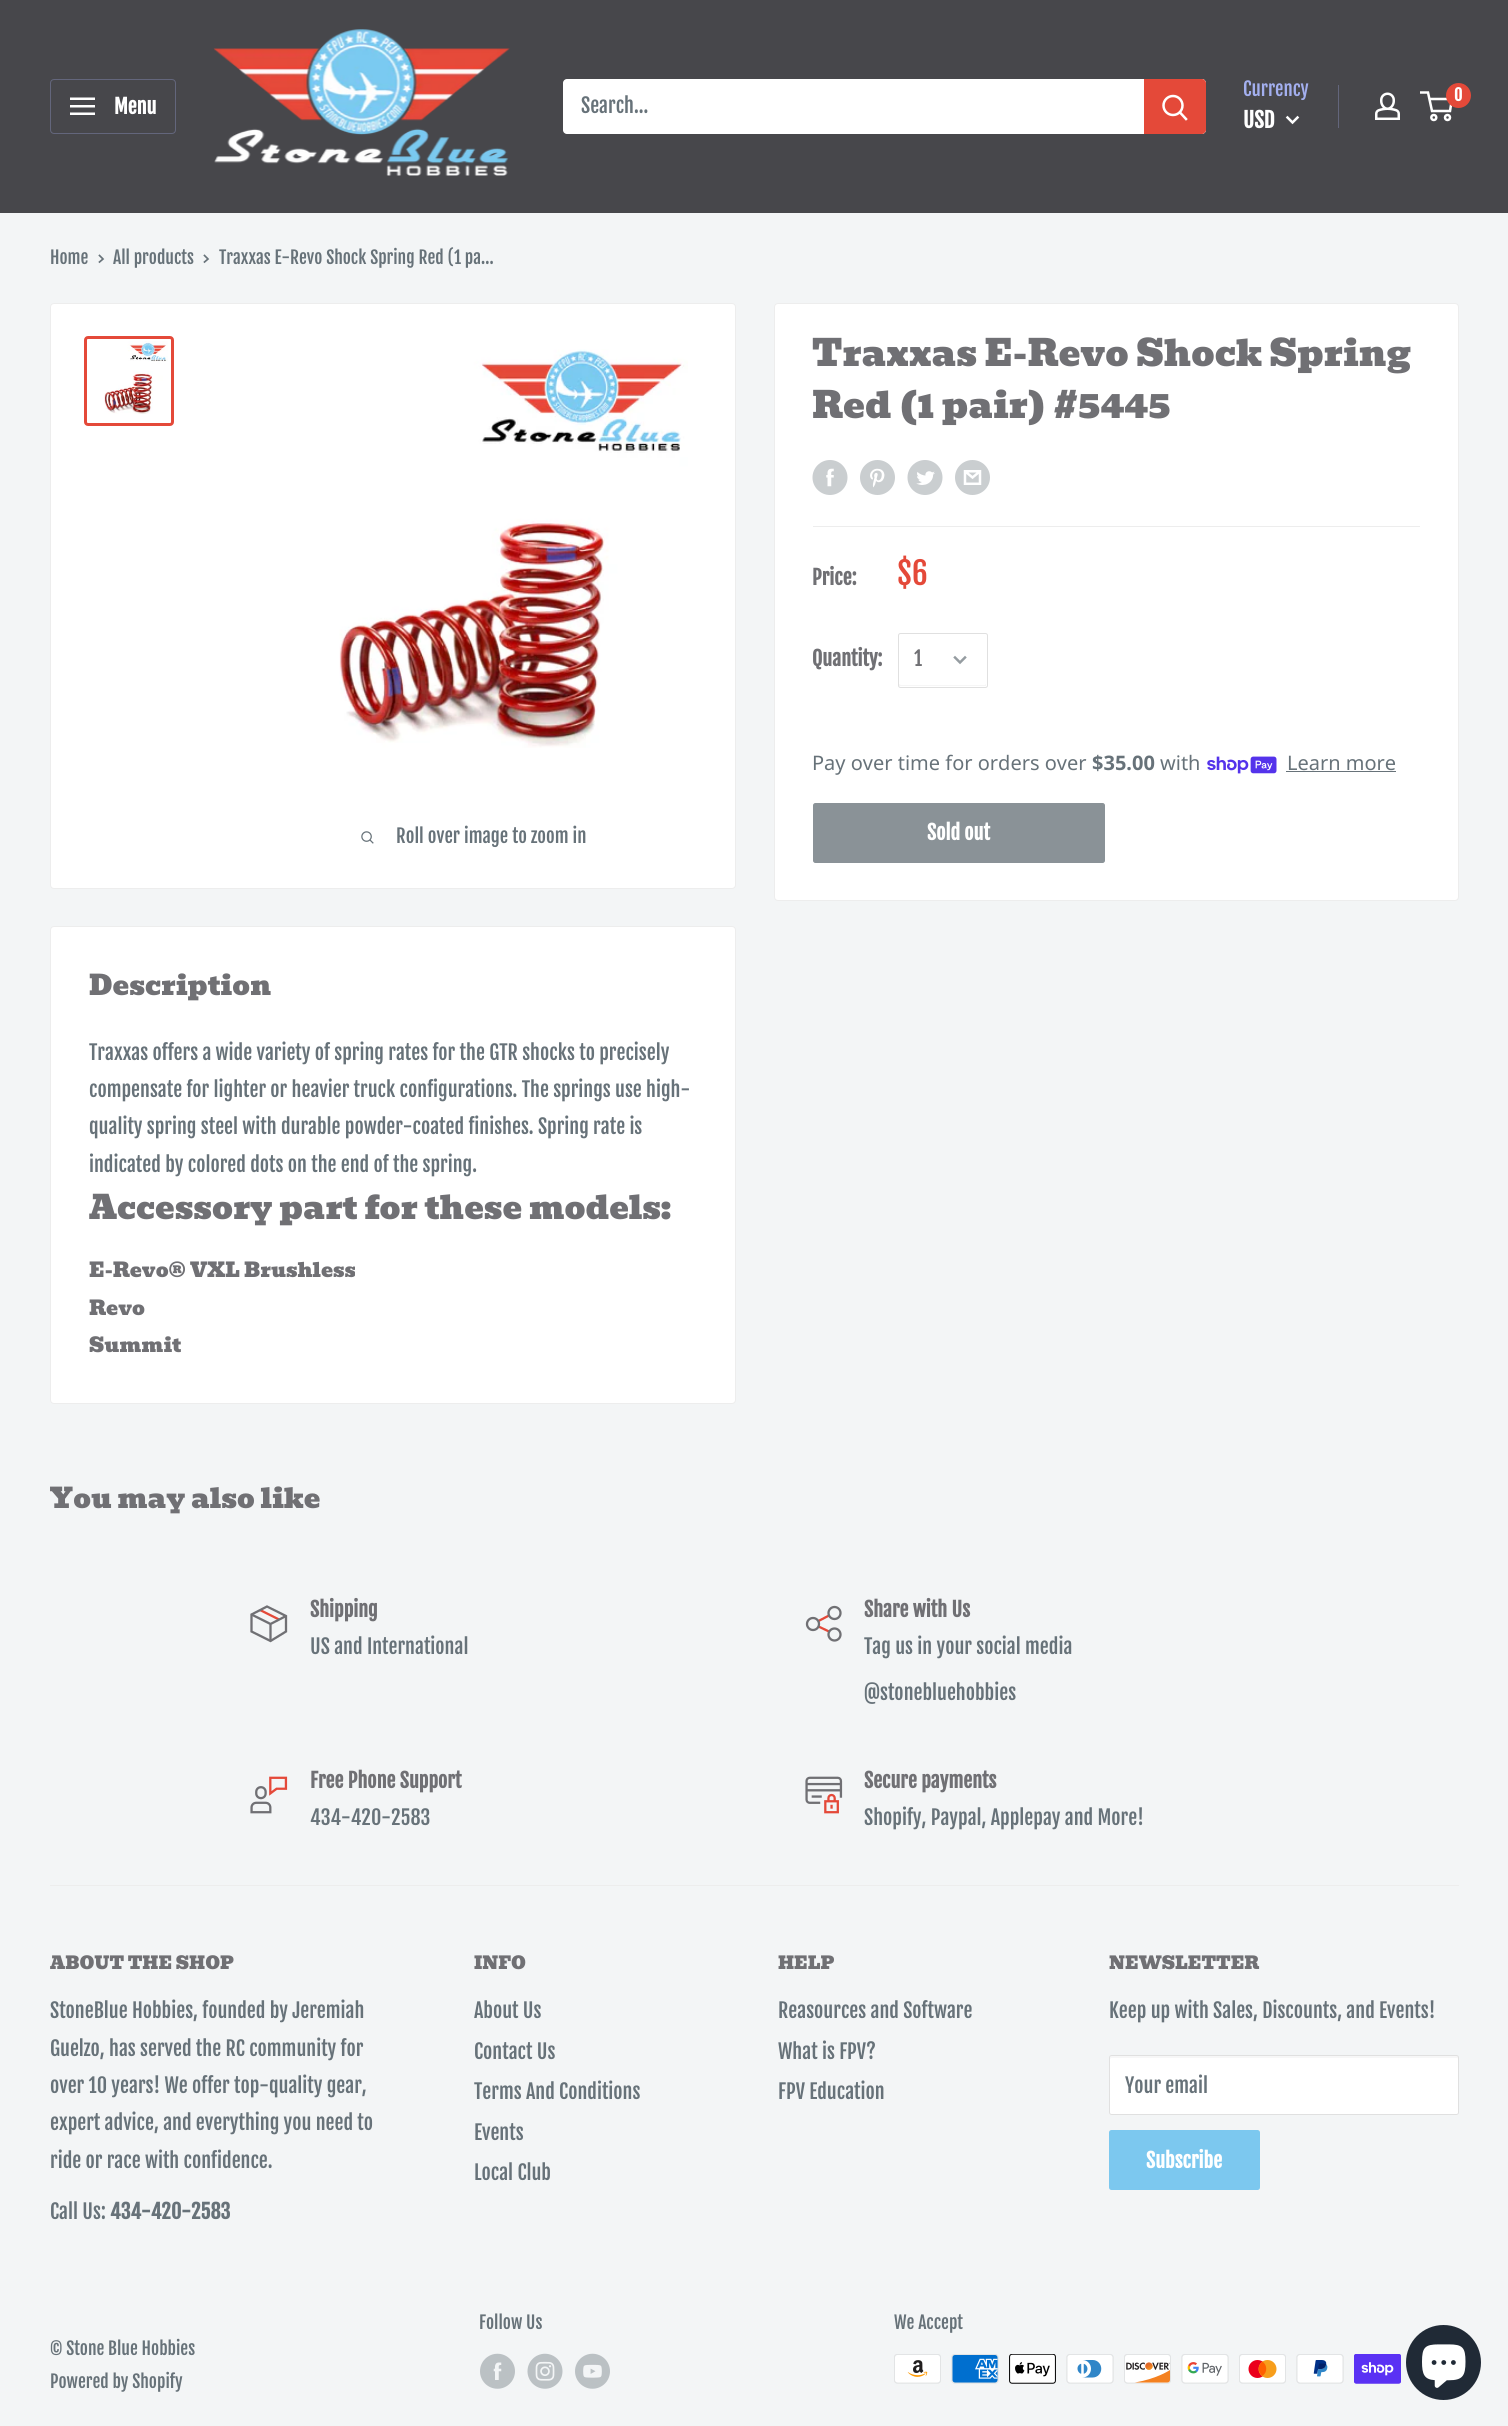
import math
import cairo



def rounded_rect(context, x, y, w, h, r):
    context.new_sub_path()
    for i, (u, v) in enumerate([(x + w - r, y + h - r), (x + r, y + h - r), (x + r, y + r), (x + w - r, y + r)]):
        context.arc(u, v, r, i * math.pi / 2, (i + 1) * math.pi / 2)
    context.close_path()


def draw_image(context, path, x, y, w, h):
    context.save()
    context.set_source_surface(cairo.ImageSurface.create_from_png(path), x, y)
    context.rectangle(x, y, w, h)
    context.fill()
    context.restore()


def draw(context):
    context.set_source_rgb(243 / 255, 245 / 255, 246 / 255)
    context.paint()
    context.set_source_rgb(71 / 255, 71 / 255, 75 / 255)
    context.rectangle(0, 0, 1508, 213)
    context.fill()
    rounded_rect(context, 50.5, 79.5, 125, 54, 3.5)
    context.set_source_rgb(99 / 255, 102 / 255, 124 / 255)
    context.set_line_width(1)
    context.stroke()
    draw_image(context, "images/1.png", 70, 97, 25, 18)
    draw_image(context, "images/2.png", 213, 29, 297, 147)
    context.set_source_rgb(1, 1, 1)
    rounded_rect(context, 563, 79, 643, 55, 4)
    context.fill()
    context.set_source_rgb(228 / 255, 73 / 255, 57 / 255)
    context.new_path()
    context.move_to(1144, 79)
    context.line_to(1202, 79)
    context.curve_to(1204, 79, 1206, 81, 1206, 83)
    context.line_to(1206, 130)
    context.curve_to(1206, 132, 1204, 134, 1202, 134)
    context.line_to(1144, 134)
    context.close_path()
    context.fill()
    context.new_path()
    context.move_to(1186, 119)
    context.line_to(1180, 112.5)
    context.set_source_rgb(1, 1, 1)
    context.set_line_width(2.5)
    context.set_line_cap(cairo.LineCap.SQUARE)
    context.stroke()
    context.arc(1173, 105.5, 9.5, 0, 2 * math.pi)
    context.set_line_cap(cairo.LineCap.BUTT)
    context.stroke()
    context.set_source_rgb(99 / 255, 102 / 255, 124 / 255)
    context.rectangle(1338, 85, 1, 43)
    context.fill()
    context.new_path()
    context.move_to(1297.5, 117.5)
    context.line_to(1292.5, 122.5)
    context.line_to(1287.5, 117.5)
    context.set_source_rgb(1, 1, 1)
    context.set_line_cap(cairo.LineCap.SQUARE)
    context.stroke()
    draw_image(context, "images/3.png", 1375, 92, 25, 28)
    context.arc(1433.8, 117.5, 2.5, 0, 2 * math.pi)
    context.set_line_cap(cairo.LineCap.BUTT)
    context.stroke()
    context.arc(1447.5, 117.5, 2.5, 0, 2 * math.pi)
    context.stroke()
    context.new_path()
    context.move_to(1429, 99)
    context.line_to(1452, 99)
    context.line_to(1450, 111)
    context.line_to(1432, 111)
    context.line_to(1428, 92.5)
    context.line_to(1420, 92.5)
    context.stroke()
    context.set_source_rgb(228 / 255, 73 / 255, 57 / 255)
    context.arc(1458.5, 95.5, 12.5, 0, 2 * math.pi)
    context.fill()
    context.new_path()
    context.move_to(99.5, 255.5)
    context.line_to(103, 259)
    context.line_to(99.5, 262)
    context.set_source_rgb(103 / 255, 114 / 255, 121 / 255)
    context.set_line_width(1.7)
    context.set_line_cap(cairo.LineCap.SQUARE)
    context.stroke()
    context.new_path()
    context.move_to(204.5, 255.5)
    context.line_to(208, 259)
    context.line_to(204.5, 262)
    context.stroke()
    context.set_source_rgb(1, 1, 1)
    rounded_rect(context, 50.5, 303.5, 685, 585, 3.5)
    context.fill_preserve()
    context.set_source_rgb(237 / 255, 237 / 255, 237 / 255)
    context.set_line_width(1)
    context.set_line_cap(cairo.LineCap.BUTT)
    context.stroke()
    rounded_rect(context, 85.5, 337.5, 87, 87, 2.5)
    context.set_source_rgb(228 / 255, 73 / 255, 57 / 255)
    context.set_line_width(3)
    context.stroke()
    draw_image(context, "images/4.png", 104, 341, 64, 73)
    draw_image(context, "images/5.png", 339, 349, 349, 399)
    draw_image(context, "images/6.png", 361, 831, 13, 13)
    context.set_source_rgb(1, 1, 1)
    rounded_rect(context, 774.5, 303.5, 684, 597, 3.5)
    context.fill_preserve()
    context.set_source_rgb(237 / 255, 237 / 255, 237 / 255)
    context.set_line_width(1)
    context.stroke()
    draw_image(context, "images/7.png", 812, 460, 36, 35)
    draw_image(context, "images/8.png", 860, 460, 35, 35)
    draw_image(context, "images/9.png", 907, 460, 36, 35)
    draw_image(context, "images/10.png", 955, 460, 35, 35)
    context.rectangle(813, 526, 607, 1)
    context.fill()
    context.set_source_rgb(246 / 255, 246 / 255, 246 / 255)
    context.new_path()
    context.move_to(899, 684)
    context.line_to(899, 686)
    context.line_to(986, 686)
    context.line_to(986, 684)
    context.line_to(985, 685)
    context.line_to(901, 685)
    context.close_path()
    context.fill()
    rounded_rect(context, 898.5, 633.5, 89, 54, 2)
    context.set_source_rgb(224 / 255, 224 / 255, 224 / 255)
    context.stroke()
    context.new_path()
    context.move_to(965, 657.5)
    context.line_to(960, 662.5)
    context.line_to(955, 657.5)
    context.set_source_rgb(149 / 255, 156 / 255, 161 / 255)
    context.set_line_width(2.5)
    context.set_line_cap(cairo.LineCap.SQUARE)
    context.stroke()
    draw_image(context, "images/11.png", 1207, 756, 70, 18)
    context.set_source_rgb(103 / 255, 114 / 255, 121 / 255)
    context.rectangle(1286, 771, 110, 1)
    context.fill()
    context.set_source_rgb(138 / 255, 146 / 255, 151 / 255)
    rounded_rect(context, 813.5, 803.5, 291, 59, 2)
    context.fill_preserve()
    context.set_line_width(1)
    context.set_line_cap(cairo.LineCap.BUTT)
    context.stroke()
    context.set_source_rgb(1, 1, 1)
    rounded_rect(context, 50.5, 926.5, 685, 477, 3.5)
    context.fill_preserve()
    context.set_source_rgb(237 / 255, 237 / 255, 237 / 255)
    context.stroke()
    context.new_path()
    context.move_to(260, 1610)
    context.line_to(279, 1619.5)
    context.set_source_rgb(228 / 255, 73 / 255, 57 / 255)
    context.set_line_width(2.3)
    context.stroke()
    context.new_path()
    context.move_to(286, 1616)
    context.line_to(270.5, 1624)
    context.line_to(251.5, 1614.5)
    context.move_to(270.5, 1624)
    context.line_to(270.5, 1641)
    context.set_source_rgb(112 / 255, 112 / 255, 116 / 255)
    context.stroke()
    context.new_path()
    context.move_to(286, 1616)
    context.line_to(286, 1631.5)
    context.line_to(270.5, 1641)
    context.line_to(251.5, 1631.5)
    context.line_to(251.5, 1614.5)
    context.line_to(267, 1606.5)
    context.close_path()
    context.set_line_cap(cairo.LineCap.SQUARE)
    context.stroke()
    context.new_path()
    context.move_to(818.5, 1621)
    context.line_to(829, 1615.5)
    context.move_to(818.5, 1626.5)
    context.line_to(829, 1631.5)
    context.set_source_rgb(228 / 255, 73 / 255, 57 / 255)
    context.set_line_cap(cairo.LineCap.BUTT)
    context.stroke()
    context.arc(813, 1624, 6, 0, 2 * math.pi)
    context.set_source_rgb(112 / 255, 112 / 255, 116 / 255)
    context.stroke()
    context.arc(834.5, 1613, 6, 0, 2 * math.pi)
    context.stroke()
    context.arc(834.5, 1634.5, 6, 0, 2 * math.pi)
    context.stroke()
    draw_image(context, "images/12.png", 250, 1776, 38, 38)
    draw_image(context, "images/13.png", 805, 1776, 38, 38)
    context.set_source_rgb(237 / 255, 237 / 255, 237 / 255)
    context.rectangle(50, 1885, 1409, 1)
    context.fill()
    context.set_source_rgb(1, 1, 1)
    rounded_rect(context, 1109, 2055, 350, 60, 2.5)
    context.fill()
    context.set_source_rgb(247 / 255, 247 / 255, 247 / 255)
    context.new_path()
    context.move_to(1111, 2058)
    context.line_to(1456, 2058)
    context.curve_to(1457, 2058, 1458, 2058, 1458, 2059)
    context.line_to(1458, 2056)
    context.line_to(1111, 2056)
    context.curve_to(1110, 2056, 1110, 2058, 1110, 2059)
    context.close_path()
    context.fill()
    rounded_rect(context, 1109.5, 2055.5, 349, 59, 2)
    context.set_source_rgb(224 / 255, 224 / 255, 224 / 255)
    context.set_line_width(1)
    context.stroke()
    context.set_source_rgb(124 / 255, 200 / 255, 239 / 255)
    rounded_rect(context, 1109, 2130, 151, 60, 2.5)
    context.fill()
    draw_image(context, "images/14.png", 480, 2353, 35, 36)
    draw_image(context, "images/15.png", 527, 2353, 36, 36)
    draw_image(context, "images/16.png", 575, 2353, 35, 36)
    draw_image(context, "images/17.png", 894, 2354, 47, 30)
    draw_image(context, "images/18.png", 951, 2354, 48, 30)
    draw_image(context, "images/19.png", 1009, 2354, 47, 30)
    draw_image(context, "images/20.png", 1066, 2354, 48, 30)
    draw_image(context, "images/21.png", 1124, 2354, 47, 30)
    draw_image(context, "images/22.png", 1181, 2354, 48, 30)
    draw_image(context, "images/23.png", 1239, 2354, 47, 30)
    draw_image(context, "images/24.png", 1296, 2354, 48, 30)
    draw_image(context, "images/25.png", 1354, 2354, 47, 30)
    draw_image(context, "images/26.png", 1411, 2381, 2, 2)
    context.set_source_rgb(32 / 255, 42 / 255, 54 / 255)
    context.arc(1443.5, 2362.5, 37.5, 0, 2 * math.pi)
    context.fill()
    draw_image(context, "images/27.png", 1422, 2344, 44, 44)
    context.select_font_face("Fjalla One", cairo.FontSlant.NORMAL, cairo.FontWeight.BOLD)
    context.set_font_size(20)
    context.set_source_rgb(1, 1, 1)
    context.move_to(114, 114)
    context.show_text("Menu")
    context.select_font_face("Fjalla One")
    context.set_source_rgb(103 / 255, 114 / 255, 121 / 255)
    context.move_to(581, 113)
    context.show_text("Search...")
    context.set_font_size(18.75)
    context.set_source_rgb(163 / 255, 175 / 255, 239 / 255)
    context.move_to(1243, 96)
    context.show_text("Currency")
    context.select_font_face("Fjalla One", cairo.FontSlant.NORMAL, cairo.FontWeight.BOLD)
    context.set_font_size(21)
    context.set_source_rgb(1, 1, 1)
    context.move_to(1243, 128)
    context.show_text("USD")
    context.set_font_size(16)
    context.move_to(1454, 101)
    context.show_text("0")
    context.select_font_face("Fjalla One")
    context.set_font_size(17.5)
    context.set_source_rgb(103 / 255, 114 / 255, 121 / 255)
    context.move_to(50, 264)
    context.show_text("Home")
    context.move_to(113, 264)
    context.show_text("All products")
    context.move_to(219, 264)
    context.show_text("Traxxas E-Revo Shock Spring Red (1 pa...")
    context.set_font_size(18.75)
    context.move_to(396, 843)
    context.show_text("Roll over image to zoom in")
    context.select_font_face("Bevan")
    context.set_font_size(36.25)
    context.set_source_rgb(112 / 255, 112 / 255, 116 / 255)
    context.move_to(812, 366)
    context.show_text("Traxxas E-Revo Shock Spring")
    context.move_to(812, 418)
    context.show_text("Red (1 pair) #5445")
    context.select_font_face("Fjalla One", cairo.FontSlant.NORMAL, cairo.FontWeight.BOLD)
    context.set_font_size(20)
    context.move_to(812, 585)
    context.show_text("Price:")
    context.select_font_face("Fjalla One")
    context.set_font_size(31)
    context.set_source_rgb(228 / 255, 73 / 255, 57 / 255)
    context.move_to(897, 585)
    context.show_text("$6")
    context.select_font_face("Fjalla One", cairo.FontSlant.NORMAL, cairo.FontWeight.BOLD)
    context.set_font_size(20)
    context.set_source_rgb(112 / 255, 112 / 255, 116 / 255)
    context.move_to(812, 666)
    context.show_text("Quantity:")
    context.select_font_face("Fjalla One")
    context.move_to(914, 666)
    context.show_text("1")
    context.select_font_face("Noto Sans")
    context.set_source_rgb(103 / 255, 114 / 255, 121 / 255)
    context.move_to(812, 770)
    context.show_text("Pay over time for orders over")
    context.select_font_face("Noto Sans", cairo.FontSlant.NORMAL, cairo.FontWeight.BOLD)
    context.move_to(1092, 770)
    context.show_text("$35.00")
    context.select_font_face("Noto Sans")
    context.move_to(1160, 770)
    context.show_text("with")
    context.move_to(1287, 770)
    context.show_text("Learn more")
    context.select_font_face("Fjalla One", cairo.FontSlant.NORMAL, cairo.FontWeight.BOLD)
    context.set_source_rgb(1, 1, 1)
    context.move_to(927, 840)
    context.show_text("Sold out")
    context.select_font_face("Bevan")
    context.set_font_size(27.5)
    context.set_source_rgb(112 / 255, 112 / 255, 116 / 255)
    context.move_to(89, 995)
    context.show_text("Description")
    context.select_font_face("Fjalla One")
    context.set_font_size(20)
    context.set_source_rgb(103 / 255, 114 / 255, 121 / 255)
    context.move_to(89, 1060)
    context.show_text("Traxxas offers a wide variety of spring rates for the GTR shocks to precisely")
    context.move_to(89, 1097)
    context.show_text("compensate for lighter or heavier truck configurations. The springs use high-")
    context.move_to(89, 1134)
    context.show_text("quality spring steel with durable powder-coated finishes. Spring rate is")
    context.move_to(89, 1172)
    context.show_text("indicated by colored dots on the end of the spring.")
    context.select_font_face("Bevan")
    context.set_font_size(32.5)
    context.set_source_rgb(112 / 255, 112 / 255, 116 / 255)
    context.move_to(89, 1219)
    context.show_text("Accessory part for these models:")
    context.set_font_size(20)
    context.move_to(89, 1277)
    context.show_text("E-Revo® VXL Brushless")
    context.move_to(89, 1315)
    context.show_text("Revo")
    context.move_to(89, 1352)
    context.show_text("Summit")
    context.set_font_size(27.5)
    context.move_to(50, 1508)
    context.show_text("You may also like")
    context.select_font_face("Fjalla One", cairo.FontSlant.NORMAL, cairo.FontWeight.BOLD)
    context.set_font_size(20)
    context.move_to(310, 1617)
    context.show_text("Shipping")
    context.select_font_face("Fjalla One")
    context.set_source_rgb(103 / 255, 114 / 255, 121 / 255)
    context.move_to(310, 1654)
    context.show_text("US and International")
    context.select_font_face("Fjalla One", cairo.FontSlant.NORMAL, cairo.FontWeight.BOLD)
    context.set_source_rgb(112 / 255, 112 / 255, 116 / 255)
    context.move_to(864, 1617)
    context.show_text("Share with Us")
    context.select_font_face("Fjalla One")
    context.set_source_rgb(103 / 255, 114 / 255, 121 / 255)
    context.move_to(864, 1654)
    context.show_text("Tag us in your social media")
    context.move_to(864, 1700)
    context.show_text("@stonebluehobbies")
    context.select_font_face("Fjalla One", cairo.FontSlant.NORMAL, cairo.FontWeight.BOLD)
    context.set_source_rgb(112 / 255, 112 / 255, 116 / 255)
    context.move_to(310, 1788)
    context.show_text("Free Phone Support")
    context.select_font_face("Fjalla One")
    context.set_source_rgb(103 / 255, 114 / 255, 121 / 255)
    context.move_to(310, 1825)
    context.show_text("434-420-2583")
    context.select_font_face("Fjalla One", cairo.FontSlant.NORMAL, cairo.FontWeight.BOLD)
    context.set_source_rgb(112 / 255, 112 / 255, 116 / 255)
    context.move_to(864, 1788)
    context.show_text("Secure payments")
    context.select_font_face("Fjalla One")
    context.set_source_rgb(103 / 255, 114 / 255, 121 / 255)
    context.move_to(864, 1825)
    context.show_text("Shopify, Paypal, Applepay and More!")
    context.select_font_face("Bevan")
    context.set_font_size(17.5)
    context.set_source_rgb(112 / 255, 112 / 255, 116 / 255)
    context.move_to(50, 1969)
    context.show_text("ABOUT THE SHOP")
    context.select_font_face("Fjalla One")
    context.set_font_size(20)
    context.set_source_rgb(103 / 255, 114 / 255, 121 / 255)
    context.move_to(50, 2018)
    context.show_text("StoneBlue Hobbies, founded by Jeremiah")
    context.move_to(50, 2056)
    context.show_text("Guelzo, has served the RC community for")
    context.move_to(50, 2093)
    context.show_text("over 10 years! We offer top-quality gear,")
    context.move_to(50, 2130)
    context.show_text("expert advice, and everything you need to")
    context.move_to(50, 2168)
    context.show_text("ride or race with confidence.")
    context.move_to(50, 2219)
    context.show_text("Call Us:")
    context.select_font_face("Fjalla One", cairo.FontSlant.NORMAL, cairo.FontWeight.BOLD)
    context.move_to(110, 2219)
    context.show_text("434-420-2583")
    context.select_font_face("Bevan")
    context.set_font_size(17.5)
    context.set_source_rgb(112 / 255, 112 / 255, 116 / 255)
    context.move_to(474, 1969)
    context.show_text("INFO")
    context.select_font_face("Fjalla One")
    context.set_font_size(20)
    context.set_source_rgb(103 / 255, 114 / 255, 121 / 255)
    context.move_to(474, 2018)
    context.show_text("About Us")
    context.move_to(474, 2059)
    context.show_text("Contact Us")
    context.move_to(474, 2099)
    context.show_text("Terms And Conditions")
    context.move_to(474, 2140)
    context.show_text("Events")
    context.move_to(474, 2180)
    context.show_text("Local Club")
    context.select_font_face("Bevan")
    context.set_font_size(17.5)
    context.set_source_rgb(112 / 255, 112 / 255, 116 / 255)
    context.move_to(778, 1969)
    context.show_text("HELP")
    context.select_font_face("Fjalla One")
    context.set_font_size(20)
    context.set_source_rgb(103 / 255, 114 / 255, 121 / 255)
    context.move_to(778, 2018)
    context.show_text("Reasources and Software")
    context.move_to(778, 2059)
    context.show_text("What is FPV?")
    context.move_to(778, 2099)
    context.show_text("FPV Education")
    context.select_font_face("Bevan")
    context.set_font_size(17.5)
    context.set_source_rgb(112 / 255, 112 / 255, 116 / 255)
    context.move_to(1109, 1969)
    context.show_text("NEWSLETTER")
    context.select_font_face("Fjalla One")
    context.set_font_size(20)
    context.set_source_rgb(103 / 255, 114 / 255, 121 / 255)
    context.move_to(1109, 2018)
    context.show_text("Keep up with Sales, Discounts, and Events!")
    context.move_to(1125, 2093)
    context.show_text("Your email")
    context.select_font_face("Fjalla One", cairo.FontSlant.NORMAL, cairo.FontWeight.BOLD)
    context.set_source_rgb(1, 1, 1)
    context.move_to(1146, 2168)
    context.show_text("Subscribe")
    context.select_font_face("Fjalla One")
    context.set_font_size(17.5)
    context.set_source_rgb(103 / 255, 114 / 255, 121 / 255)
    context.move_to(479, 2329)
    context.show_text("Follow Us")
    context.move_to(894, 2329)
    context.show_text("We Accept")
    context.move_to(50, 2355)
    context.show_text("© Stone Blue Hobbies")
    context.move_to(50, 2388)
    context.show_text("Powered by Shopify")


surface = cairo.ImageSurface(cairo.Format.RGB24, 1508, 2426)
context = cairo.Context(surface)
options = cairo.FontOptions()
options.set_hint_metrics(cairo.HintMetrics.OFF)
options.set_hint_style(cairo.HintStyle.NONE)
context.set_font_options(options)
context.set_miter_limit(4)
draw(context)
surface.write_to_png("out.png")
